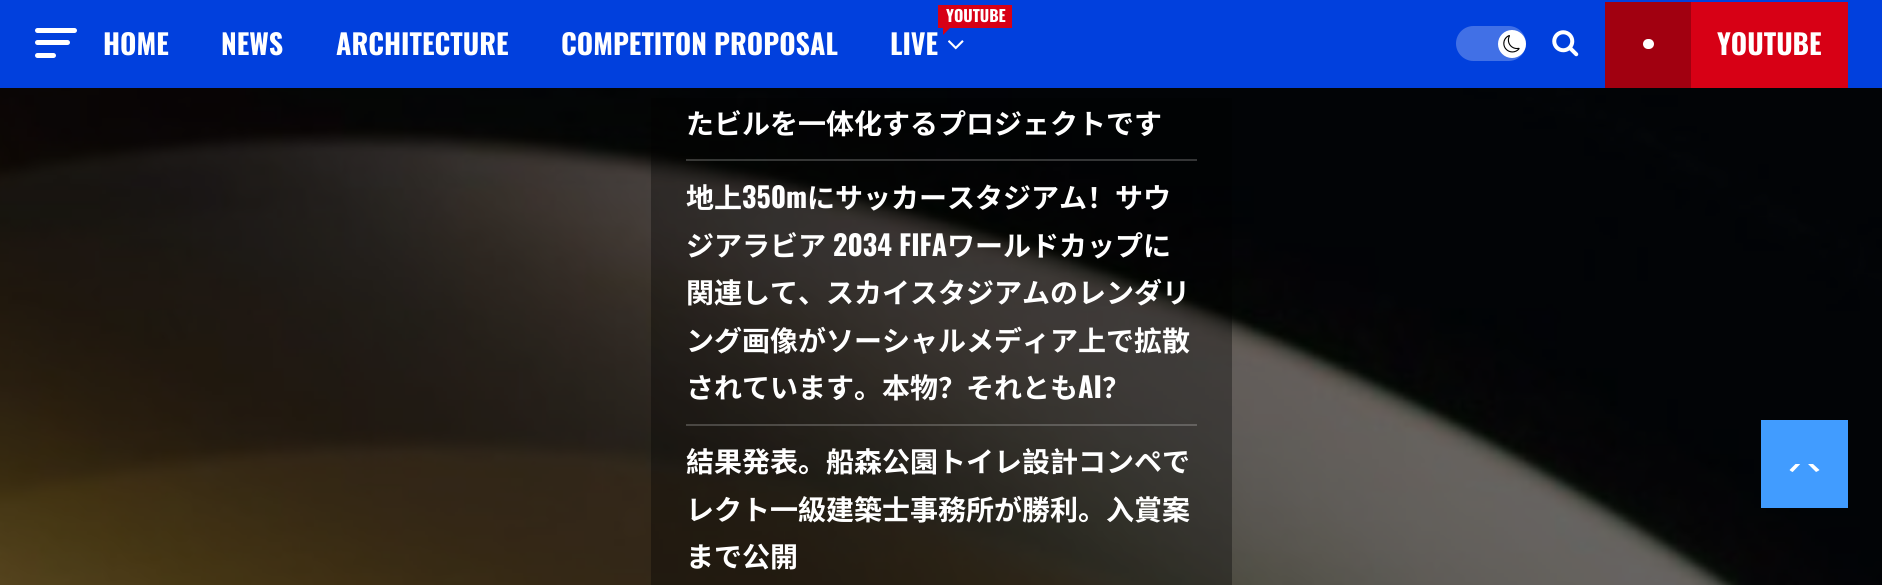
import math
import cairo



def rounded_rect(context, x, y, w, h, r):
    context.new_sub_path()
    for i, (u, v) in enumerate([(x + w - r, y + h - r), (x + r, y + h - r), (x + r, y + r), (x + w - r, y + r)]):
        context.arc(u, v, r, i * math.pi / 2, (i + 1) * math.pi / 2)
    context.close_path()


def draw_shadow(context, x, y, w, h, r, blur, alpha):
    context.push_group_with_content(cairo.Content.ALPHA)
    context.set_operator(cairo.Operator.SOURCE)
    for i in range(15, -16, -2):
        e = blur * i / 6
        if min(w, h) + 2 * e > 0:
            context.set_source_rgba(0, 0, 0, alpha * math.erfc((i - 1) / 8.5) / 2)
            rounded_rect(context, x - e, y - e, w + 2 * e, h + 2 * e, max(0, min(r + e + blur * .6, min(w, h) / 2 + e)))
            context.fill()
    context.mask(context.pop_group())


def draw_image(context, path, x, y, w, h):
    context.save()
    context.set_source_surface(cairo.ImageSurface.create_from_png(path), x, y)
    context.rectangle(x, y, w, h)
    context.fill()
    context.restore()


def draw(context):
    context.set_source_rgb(1, 1, 1)
    context.paint()
    draw_image(context, "images/4.png", 0, 88, 1882, 497)
    context.set_source_rgba(0, 0, 0, 0.35)
    context.rectangle(651, 98, 581, 487)
    context.fill()
    context.set_source_rgb(0, 0, 0)
    draw_shadow(context, 0, 4, 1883, 87, 0, 7, 0.08)
    context.set_source_rgb(1 / 255, 64 / 255, 221 / 255)
    context.rectangle(0, 0, 1882, 88)
    context.fill()
    context.set_source_rgb(1, 1, 1)
    rounded_rect(context, 35, 28, 42, 5, 2.5)
    context.fill()
    rounded_rect(context, 35, 40, 35, 5, 2.5)
    context.fill()
    rounded_rect(context, 35, 53, 21, 5, 2.5)
    context.fill()
    context.set_source_rgb(215 / 255, 0, 21 / 255)
    context.rectangle(938, 5, 74, 23)
    context.fill()
    context.new_path()
    context.move_to(943, 26)
    context.line_to(952, 26)
    context.line_to(943, 35)
    context.close_path()
    context.fill()
    draw_image(context, "images/1.png", 948, 40, 16, 10)
    context.set_source_rgb(65 / 255, 112 / 255, 230 / 255)
    rounded_rect(context, 1456, 26, 70, 35, 17.5)
    context.fill()
    context.set_source_rgb(1, 1, 1)
    context.arc(1512, 44, 14, 0, 2 * math.pi)
    context.fill()
    draw_image(context, "images/2.png", 1503, 35, 17, 18)
    draw_image(context, "images/3.png", 1552, 30, 27, 27)
    context.set_source_rgb(215 / 255, 0, 21 / 255)
    context.rectangle(1691, 2, 157, 86)
    context.fill()
    context.set_source_rgb(161 / 255, 0, 16 / 255)
    context.rectangle(1605, 2, 86, 86)
    context.fill()
    context.set_source_rgb(1, 1, 1)
    rounded_rect(context, 1643, 39, 11, 10, 5)
    context.fill()
    context.set_source_rgba(1, 1, 1, 0.2)
    context.rectangle(686, 159, 511, 2)
    context.fill()
    context.rectangle(686, 424, 511, 2)
    context.fill()
    context.set_source_rgb(65 / 255, 156 / 255, 1)
    context.rectangle(1761, 420, 87, 88)
    context.fill()
    context.set_source_rgb(1, 1, 1)
    context.new_path()
    context.move_to(1795.5, 472.5)
    context.line_to(1813, 472.5)
    context.curve_to(1815.5, 472.5, 1817.5, 471.5, 1819.5, 470)
    context.line_to(1813, 464)
    context.line_to(1795.5, 464)
    context.line_to(1789.5, 470)
    context.curve_to(1791, 471.5, 1793, 472.5, 1795.5, 472.5)
    context.close_path()
    context.fill()
    context.set_source_rgb(65 / 255, 156 / 255, 1)
    context.new_path()
    context.move_to(1822, 478)
    context.line_to(1787, 478)
    context.line_to(1804, 460)
    context.close_path()
    context.fill()
    context.select_font_face("Oswald", cairo.FontSlant.NORMAL, cairo.FontWeight.BOLD)
    context.set_font_size(28)
    context.set_source_rgb(1, 1, 1)
    context.move_to(103, 55)
    context.show_text("HOME")
    context.move_to(221, 55)
    context.show_text("NEWS")
    context.move_to(336, 55)
    context.show_text("ARCHITECTURE")
    context.move_to(561, 55)
    context.show_text("COMPETITON PROPOSAL")
    context.set_font_size(16)
    context.move_to(946, 22)
    context.show_text("YOUTUBE")
    context.set_font_size(28)
    context.move_to(890, 55)
    context.show_text("LIVE")
    context.move_to(1717, 55)
    context.show_text("YOUTUBE")
    context.select_font_face("Noto Sans CJK SC", cairo.FontSlant.NORMAL, cairo.FontWeight.BOLD)
    context.move_to(686, 134)
    context.show_text("たビルを一体化するプロジェクトです")
    context.move_to(686, 208)
    context.show_text("地上")
    context.select_font_face("Oswald", cairo.FontSlant.NORMAL, cairo.FontWeight.BOLD)
    context.move_to(742, 208)
    context.show_text("350m")
    context.select_font_face("Noto Sans CJK SC", cairo.FontSlant.NORMAL, cairo.FontWeight.BOLD)
    context.move_to(807, 208)
    context.show_text("にサッカースタジアム！サウ")
    context.move_to(686, 256)
    context.show_text("ジアラビア")
    context.select_font_face("Oswald", cairo.FontSlant.NORMAL, cairo.FontWeight.BOLD)
    context.move_to(833, 256)
    context.show_text("2034 FIFA")
    context.select_font_face("Noto Sans CJK SC", cairo.FontSlant.NORMAL, cairo.FontWeight.BOLD)
    context.move_to(947, 256)
    context.show_text("ワールドカップに")
    context.move_to(686, 303)
    context.show_text("関連して、スカイスタジアムのレンダリ")
    context.move_to(686, 351)
    context.show_text("ング画像がソーシャルメディア上で拡散")
    context.move_to(686, 398)
    context.show_text("されています。本物？それとも")
    context.select_font_face("Oswald", cairo.FontSlant.NORMAL, cairo.FontWeight.BOLD)
    context.move_to(1078, 398)
    context.show_text("AI")
    context.select_font_face("Noto Sans CJK SC", cairo.FontSlant.NORMAL, cairo.FontWeight.BOLD)
    context.move_to(1102, 398)
    context.show_text("？")
    context.move_to(686, 472)
    context.show_text("結果発表。船森公園トイレ設計コンペで")
    context.move_to(686, 520)
    context.show_text("レクト一級建築士事務所が勝利。入賞案")
    context.move_to(686, 567)
    context.show_text("まで公開")


surface = cairo.ImageSurface(cairo.Format.RGB24, 1882, 585)
context = cairo.Context(surface)
options = cairo.FontOptions()
options.set_hint_metrics(cairo.HintMetrics.OFF)
options.set_hint_style(cairo.HintStyle.NONE)
context.set_font_options(options)
context.set_miter_limit(4)
draw(context)
surface.write_to_png("out.png")
